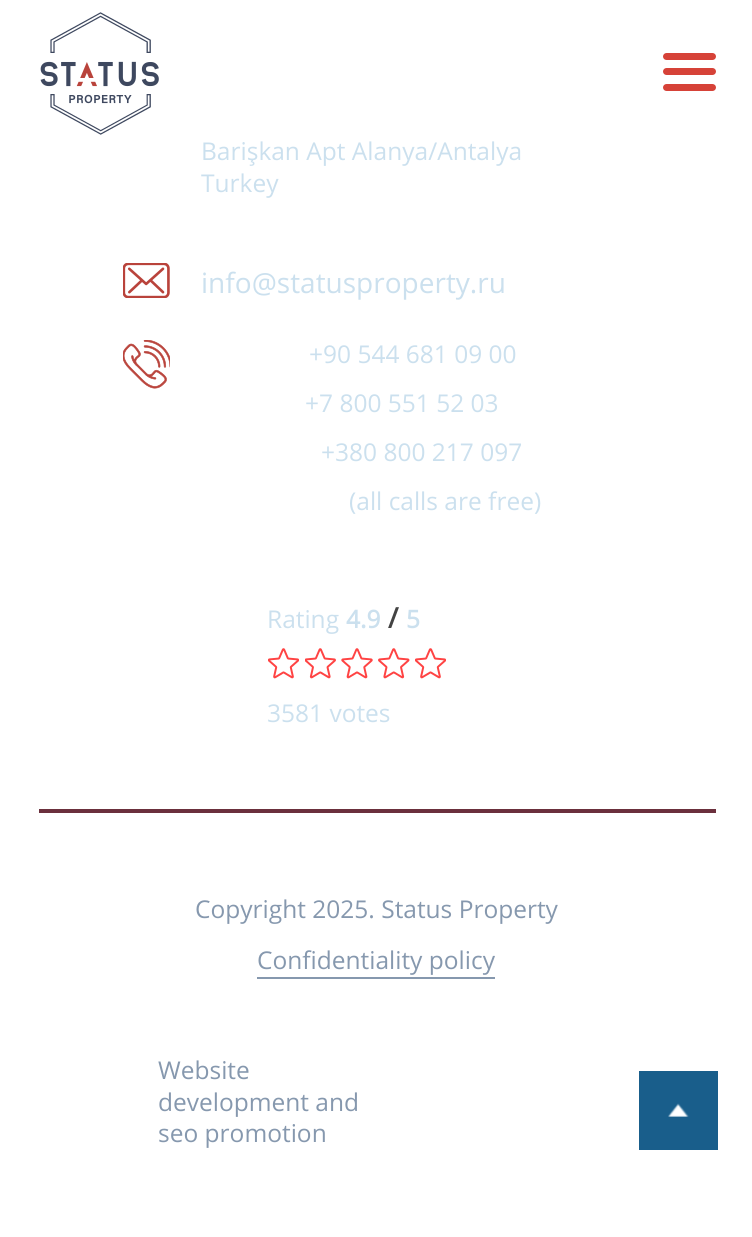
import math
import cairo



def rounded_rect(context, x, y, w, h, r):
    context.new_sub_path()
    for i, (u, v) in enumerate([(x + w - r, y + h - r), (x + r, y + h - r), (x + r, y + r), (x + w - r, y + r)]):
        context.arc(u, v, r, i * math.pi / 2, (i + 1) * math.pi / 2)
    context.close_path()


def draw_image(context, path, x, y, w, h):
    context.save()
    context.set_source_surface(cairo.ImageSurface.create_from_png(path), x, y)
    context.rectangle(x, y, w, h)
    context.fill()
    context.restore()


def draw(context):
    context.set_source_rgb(1, 1, 1)
    context.paint()
    draw_image(context, "images/1.png", 40, 12, 119, 123)
    context.set_source_rgb(214 / 255, 66 / 255, 56 / 255)
    rounded_rect(context, 663, 53, 53, 7, 3.5)
    context.fill()
    rounded_rect(context, 663, 68, 53, 7, 3.5)
    context.fill()
    rounded_rect(context, 663, 84, 53, 7, 3.5)
    context.fill()
    context.set_source_rgb(107 / 255, 48 / 255, 61 / 255)
    context.rectangle(39, 809, 677, 4)
    context.fill()
    draw_image(context, "images/2.png", 123, 263, 47, 35)
    draw_image(context, "images/3.png", 123, 340, 47, 49)
    draw_image(context, "images/4.png", 268, 648, 31, 31)
    draw_image(context, "images/5.png", 305, 648, 31, 31)
    draw_image(context, "images/6.png", 341, 648, 32, 31)
    draw_image(context, "images/7.png", 378, 648, 32, 31)
    draw_image(context, "images/4.png", 415, 648, 31, 31)
    context.set_source_rgb(134 / 255, 152 / 255, 174 / 255)
    context.rectangle(257, 977, 238, 2)
    context.fill()
    context.set_source_rgb(25 / 255, 94 / 255, 139 / 255)
    context.rectangle(639, 1071, 79, 79)
    context.fill()
    draw_image(context, "images/8.png", 668, 1103, 21, 14)
    context.select_font_face("Open Sans")
    context.set_font_size(24.5)
    context.set_source_rgb(203 / 255, 224 / 255, 238 / 255)
    context.move_to(201, 160)
    context.show_text("Barişkan Apt Alanya/Antalya")
    context.move_to(201, 192)
    context.show_text("Turkey")
    context.set_font_size(28)
    context.move_to(201, 293)
    context.show_text("info@statusproperty.ru")
    context.set_font_size(24.5)
    context.move_to(309, 363)
    context.show_text("+90 544 681 09 00")
    context.move_to(305, 412)
    context.show_text("+7 800 551 52 03")
    context.move_to(321, 461)
    context.show_text("+380 800 217 097")
    context.move_to(349, 510)
    context.show_text("(all calls are free)")
    context.move_to(267, 628)
    context.show_text("Rating")
    context.select_font_face("Open Sans", cairo.FontSlant.NORMAL, cairo.FontWeight.BOLD)
    context.move_to(346, 628)
    context.show_text("4.9")
    context.set_font_size(28)
    context.set_source_rgb(67 / 255, 67 / 255, 67 / 255)
    context.move_to(388, 628)
    context.show_text("/")
    context.set_font_size(24.5)
    context.set_source_rgb(203 / 255, 224 / 255, 238 / 255)
    context.move_to(406, 628)
    context.show_text("5")
    context.select_font_face("Open Sans")
    context.move_to(267, 722)
    context.show_text("3581 votes")
    context.set_source_rgb(134 / 255, 152 / 255, 174 / 255)
    context.move_to(195, 918)
    context.show_text("Copyright 2025. Status Property")
    context.move_to(257, 969)
    context.show_text("Confidentiality policy")
    context.move_to(158, 1079)
    context.show_text("Website")
    context.move_to(158, 1111)
    context.show_text("development and")
    context.move_to(158, 1142)
    context.show_text("seo promotion")


surface = cairo.ImageSurface(cairo.Format.RGB24, 752, 1237)
context = cairo.Context(surface)
options = cairo.FontOptions()
options.set_hint_metrics(cairo.HintMetrics.OFF)
options.set_hint_style(cairo.HintStyle.NONE)
context.set_font_options(options)
context.set_miter_limit(4)
draw(context)
surface.write_to_png("out.png")
